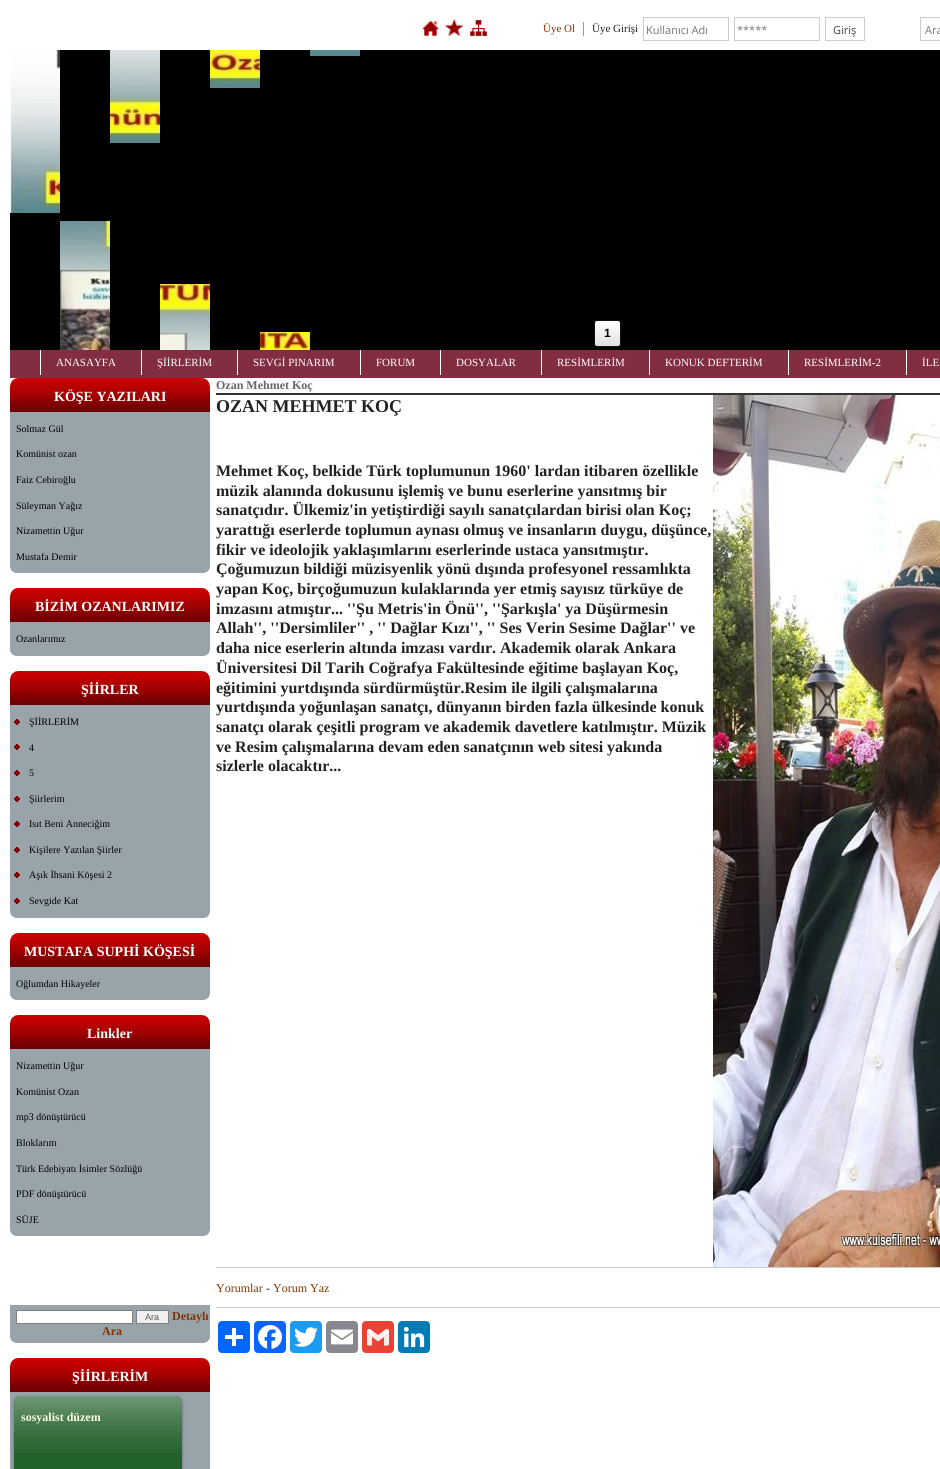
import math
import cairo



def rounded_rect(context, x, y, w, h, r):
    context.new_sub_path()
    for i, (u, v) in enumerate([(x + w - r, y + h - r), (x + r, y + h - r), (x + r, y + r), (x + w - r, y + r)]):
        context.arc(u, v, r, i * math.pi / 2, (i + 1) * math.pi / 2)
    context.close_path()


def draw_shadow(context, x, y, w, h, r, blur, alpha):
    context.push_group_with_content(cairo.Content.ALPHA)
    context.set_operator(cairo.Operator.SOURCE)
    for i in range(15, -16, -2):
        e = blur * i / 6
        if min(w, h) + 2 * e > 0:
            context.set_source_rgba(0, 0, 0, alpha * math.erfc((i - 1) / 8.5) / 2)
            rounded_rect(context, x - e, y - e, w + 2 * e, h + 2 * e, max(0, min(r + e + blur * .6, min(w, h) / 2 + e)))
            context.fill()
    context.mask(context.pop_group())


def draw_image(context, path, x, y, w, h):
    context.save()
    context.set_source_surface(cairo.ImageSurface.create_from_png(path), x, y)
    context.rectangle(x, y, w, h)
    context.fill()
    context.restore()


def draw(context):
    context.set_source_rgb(1, 1, 1)
    context.paint()
    draw_image(context, "images/1.png", 422, 20, 17, 16)
    draw_image(context, "images/2.png", 445, 19, 19, 17)
    draw_image(context, "images/3.png", 470, 20, 17, 16)
    context.set_source_rgb(153 / 255, 153 / 255, 153 / 255)
    context.rectangle(583, 22, 1, 14)
    context.fill()
    context.rectangle(643.5, 17.5, 85, 23)
    context.set_source_rgb(204 / 255, 204 / 255, 204 / 255)
    context.set_line_width(1)
    context.stroke()
    context.rectangle(734.5, 17.5, 85, 23)
    context.stroke()
    context.rectangle(825.5, 17.5, 39, 23)
    context.stroke()
    context.rectangle(920.5, 17.5, 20, 23)
    context.stroke()
    context.set_source_rgb(0, 0, 0)
    context.rectangle(10, 50, 930, 300)
    context.fill()
    draw_image(context, "images/4.png", 10, 50, 50, 163)
    draw_image(context, "images/5.png", 110, 50, 50, 93)
    draw_image(context, "images/6.png", 210, 50, 50, 38)
    draw_image(context, "images/7.png", 310, 50, 50, 6)
    draw_image(context, "images/8.png", 60, 221, 50, 129)
    draw_image(context, "images/9.png", 160, 284, 50, 66)
    draw_image(context, "images/10.png", 260, 332, 50, 18)
    gradient = cairo.LinearGradient(595, 321, 595, 346)
    gradient.add_color_stop_rgba(0, 1, 1, 1, 1)
    gradient.add_color_stop_rgba(1, 224 / 255, 224 / 255, 224 / 255, 1)
    context.set_source(gradient)
    context.rectangle(595, 321, 25, 25)
    context.fill()
    rounded_rect(context, 594.5, 320.5, 26, 26, 2.5)
    context.set_source_rgb(17 / 255, 17 / 255, 17 / 255)
    context.stroke()
    context.set_source_rgb(130 / 255, 45 / 255, 64 / 255)
    context.rectangle(10, 350, 930, 28)
    context.fill()
    context.set_source_rgb(1, 1, 1)
    context.rectangle(40, 350, 1, 25)
    context.fill()
    context.rectangle(141, 350, 1, 25)
    context.fill()
    context.rectangle(237, 350, 1, 25)
    context.fill()
    context.rectangle(360, 350, 1, 25)
    context.fill()
    context.rectangle(440, 350, 1, 25)
    context.fill()
    context.rectangle(541, 350, 1, 25)
    context.fill()
    context.rectangle(649, 350, 1, 25)
    context.fill()
    context.rectangle(788, 350, 1, 25)
    context.fill()
    context.rectangle(906, 350, 1, 25)
    context.fill()
    draw_image(context, "images/11.png", 10, 378, 200, 34)
    context.set_source_rgb(153 / 255, 163 / 255, 170 / 255)
    context.new_path()
    context.move_to(10, 412)
    context.line_to(210, 412)
    context.line_to(210, 566)
    context.curve_to(210, 570, 207, 573, 203, 573)
    context.line_to(17, 573)
    context.curve_to(13, 573, 10, 570, 10, 566)
    context.close_path()
    context.fill()
    draw_image(context, "images/11.png", 10, 588, 200, 34)
    context.new_path()
    context.move_to(10, 622)
    context.line_to(210, 622)
    context.line_to(210, 649)
    context.curve_to(210, 653, 207, 656, 203, 656)
    context.line_to(17, 656)
    context.curve_to(13, 656, 10, 653, 10, 649)
    context.close_path()
    context.fill()
    draw_image(context, "images/11.png", 10, 671, 200, 34)
    context.new_path()
    context.move_to(10, 705)
    context.line_to(210, 705)
    context.line_to(210, 911)
    context.curve_to(210, 915, 207, 918, 203, 918)
    context.line_to(17, 918)
    context.curve_to(13, 918, 10, 915, 10, 911)
    context.close_path()
    context.fill()
    draw_image(context, "images/12.png", 14, 719, 6, 6)
    draw_image(context, "images/12.png", 14, 744, 6, 6)
    draw_image(context, "images/12.png", 14, 770, 6, 6)
    draw_image(context, "images/12.png", 14, 796, 6, 6)
    draw_image(context, "images/12.png", 14, 821, 6, 6)
    draw_image(context, "images/12.png", 14, 847, 6, 6)
    draw_image(context, "images/12.png", 14, 872, 6, 6)
    draw_image(context, "images/12.png", 14, 898, 6, 6)
    draw_image(context, "images/11.png", 10, 933, 200, 34)
    context.new_path()
    context.move_to(10, 967)
    context.line_to(210, 967)
    context.line_to(210, 993)
    context.curve_to(210, 997, 207, 1000, 203, 1000)
    context.line_to(17, 1000)
    context.curve_to(13, 1000, 10, 997, 10, 993)
    context.close_path()
    context.fill()
    draw_image(context, "images/13.png", 10, 1015, 200, 34)
    context.new_path()
    context.move_to(10, 1049)
    context.line_to(210, 1049)
    context.line_to(210, 1229)
    context.curve_to(210, 1233, 207, 1236, 203, 1236)
    context.line_to(17, 1236)
    context.curve_to(13, 1236, 10, 1233, 10, 1229)
    context.close_path()
    context.fill()
    context.new_path()
    context.move_to(10, 1305)
    context.line_to(210, 1305)
    context.line_to(210, 1336)
    context.curve_to(210, 1340, 207, 1343, 203, 1343)
    context.line_to(17, 1343)
    context.curve_to(13, 1343, 10, 1340, 10, 1336)
    context.close_path()
    context.fill()
    context.set_source_rgb(1, 1, 1)
    context.rectangle(16.5, 1310.5, 116, 13)
    context.fill_preserve()
    context.set_source_rgb(128 / 255, 128 / 255, 128 / 255)
    context.stroke()
    context.set_source_rgb(239 / 255, 239 / 255, 239 / 255)
    context.rectangle(136.5, 1310.5, 32, 13)
    context.fill_preserve()
    context.set_source_rgb(128 / 255, 128 / 255, 128 / 255)
    context.stroke()
    draw_image(context, "images/11.png", 10, 1358, 200, 34)
    context.set_source_rgb(153 / 255, 163 / 255, 170 / 255)
    context.rectangle(10, 1392, 200, 77)
    context.fill()
    context.set_source_rgb(0, 0, 0)
    draw_shadow(context, 14, 1397, 168, 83, 6, 1.5, 0.4)
    context.set_source_rgb(35 / 255, 97 / 255, 45 / 255)
    rounded_rect(context, 14, 1396, 168, 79, 6)
    context.fill()
    draw_image(context, "images/14.png", 14, 1396, 168, 57)
    context.set_source_rgb(51 / 255, 51 / 255, 51 / 255)
    context.rectangle(216, 393, 724, 2)
    context.fill()
    draw_image(context, "images/15.png", 713, 395, 227, 872)
    context.set_source_rgb(204 / 255, 204 / 255, 204 / 255)
    context.rectangle(216, 1267, 724, 1)
    context.fill()
    context.rectangle(216, 1307, 724, 1)
    context.fill()
    context.set_source_rgb(1 / 255, 102 / 255, 1)
    rounded_rect(context, 218, 1321, 32, 32, 4)
    context.fill()
    context.set_source_rgb(1, 1, 1)
    context.rectangle(232, 1328, 4, 18)
    context.fill()
    context.rectangle(225, 1335, 18, 4)
    context.fill()
    context.set_source_rgb(8 / 255, 102 / 255, 1)
    rounded_rect(context, 254, 1321, 32, 32, 4)
    context.fill()
    draw_image(context, "images/16.png", 258, 1325, 24, 24)
    context.set_source_rgb(29 / 255, 155 / 255, 240 / 255)
    rounded_rect(context, 290, 1321, 32, 32, 4)
    context.fill()
    draw_image(context, "images/17.png", 294, 1327, 24, 20)
    context.set_source_rgb(136 / 255, 137 / 255, 144 / 255)
    rounded_rect(context, 326, 1321, 32, 32, 4)
    context.fill()
    draw_image(context, "images/18.png", 331, 1329, 22, 16)
    context.set_source_rgb(234 / 255, 67 / 255, 53 / 255)
    rounded_rect(context, 362, 1321, 32, 32, 4)
    context.fill()
    draw_image(context, "images/19.png", 367, 1329, 22, 17)
    context.set_source_rgb(0, 123 / 255, 181 / 255)
    rounded_rect(context, 398, 1321, 32, 32, 4)
    context.fill()
    draw_image(context, "images/20.png", 403, 1326, 22, 22)
    context.select_font_face("Liberation Serif")
    context.set_font_size(11)
    context.set_source_rgb(131 / 255, 51 / 255, 0)
    context.move_to(543, 32)
    context.show_text("Üye Ol")
    context.set_source_rgb(34 / 255, 34 / 255, 34 / 255)
    context.move_to(592, 32)
    context.show_text("Üye Girişi")
    context.select_font_face("Open Sans")
    context.set_source_rgb(117 / 255, 117 / 255, 117 / 255)
    context.move_to(646, 34)
    context.show_text("Kullanıcı Adı")
    context.move_to(737, 34)
    context.show_text("*****")
    context.set_source_rgb(68 / 255, 68 / 255, 68 / 255)
    context.move_to(833, 34)
    context.show_text("Giriş")
    context.set_source_rgb(117 / 255, 117 / 255, 117 / 255)
    context.move_to(925, 34)
    context.show_text("Ara")
    context.select_font_face("Liberation Sans", cairo.FontSlant.NORMAL, cairo.FontWeight.BOLD)
    context.set_font_size(12)
    context.set_source_rgb(0, 0, 0)
    context.move_to(604, 337)
    context.show_text("1")
    context.select_font_face("Liberation Serif")
    context.set_font_size(11)
    context.set_source_rgb(1, 1, 1)
    context.move_to(56, 366)
    context.show_text("ANASAYFA")
    context.move_to(157, 366)
    context.show_text("ŞİİRLERİM")
    context.move_to(253, 366)
    context.show_text("SEVGİ PINARIM")
    context.move_to(376, 366)
    context.show_text("FORUM")
    context.move_to(456, 366)
    context.show_text("DOSYALAR")
    context.move_to(557, 366)
    context.show_text("RESİMLERİM")
    context.move_to(665, 366)
    context.show_text("KONUK DEFTERİM")
    context.move_to(804, 366)
    context.show_text("RESİMLERİM-2")
    context.move_to(922, 366)
    context.show_text("İLE")
    context.select_font_face("Liberation Serif", cairo.FontSlant.NORMAL, cairo.FontWeight.BOLD)
    context.set_font_size(14)
    context.move_to(54, 401)
    context.show_text("KÖŞE YAZILARI")
    context.select_font_face("Liberation Serif")
    context.set_font_size(10)
    context.set_source_rgb(0, 0, 0)
    context.move_to(16, 432)
    context.show_text("Solmaz Gül")
    context.move_to(16, 457)
    context.show_text("Komünist ozan")
    context.move_to(16, 483)
    context.show_text("Faiz Cebiroğlu")
    context.move_to(16, 509)
    context.show_text("Süleyman Yağız")
    context.move_to(16, 534)
    context.show_text("Nizamettin Uğur")
    context.move_to(16, 560)
    context.show_text("Mustafa Demir")
    context.select_font_face("Liberation Serif", cairo.FontSlant.NORMAL, cairo.FontWeight.BOLD)
    context.set_font_size(14)
    context.set_source_rgb(1, 1, 1)
    context.move_to(35, 611)
    context.show_text("BİZİM OZANLARIMIZ")
    context.select_font_face("Liberation Serif")
    context.set_font_size(10)
    context.set_source_rgb(0, 0, 0)
    context.move_to(16, 642)
    context.show_text("Ozanlarımız")
    context.select_font_face("Liberation Serif", cairo.FontSlant.NORMAL, cairo.FontWeight.BOLD)
    context.set_font_size(14)
    context.set_source_rgb(1, 1, 1)
    context.move_to(81, 694)
    context.show_text("ŞİİRLER")
    context.select_font_face("Liberation Serif")
    context.set_font_size(10)
    context.set_source_rgb(0, 0, 0)
    context.move_to(29, 725)
    context.show_text("ŞİİRLERİM")
    context.move_to(29, 751)
    context.show_text("4")
    context.move_to(29, 776)
    context.show_text("5")
    context.move_to(29, 802)
    context.show_text("Şiirlerim")
    context.move_to(29, 827)
    context.show_text("Isıt Beni Anneciğim")
    context.move_to(29, 853)
    context.show_text("Kişilere Yazılan Şiirler")
    context.move_to(29, 878)
    context.show_text("Aşık İhsani Köşesi 2")
    context.move_to(29, 904)
    context.show_text("Sevgide Kat")
    context.select_font_face("Liberation Serif", cairo.FontSlant.NORMAL, cairo.FontWeight.BOLD)
    context.set_font_size(14)
    context.set_source_rgb(1, 1, 1)
    context.move_to(24, 956)
    context.show_text("MUSTAFA SUPHİ KÖŞESİ")
    context.select_font_face("Liberation Serif")
    context.set_font_size(10)
    context.set_source_rgb(0, 0, 0)
    context.move_to(16, 987)
    context.show_text("Oğlumdan Hikayeler")
    context.select_font_face("Liberation Serif", cairo.FontSlant.NORMAL, cairo.FontWeight.BOLD)
    context.set_font_size(14)
    context.set_source_rgb(1, 1, 1)
    context.move_to(87, 1038)
    context.show_text("Linkler")
    context.select_font_face("Liberation Serif")
    context.set_font_size(10)
    context.set_source_rgb(0, 0, 0)
    context.move_to(16, 1069)
    context.show_text("Nizamettin Uğur")
    context.move_to(16, 1095)
    context.show_text("Komünist Ozan")
    context.move_to(16, 1120)
    context.show_text("mp3 dönüştürücü")
    context.move_to(16, 1146)
    context.show_text("Bloklarım")
    context.move_to(16, 1172)
    context.show_text("Türk Edebiyatı İsimler Sözlüğü")
    context.move_to(16, 1197)
    context.show_text("PDF dönüştürücü")
    context.move_to(16, 1223)
    context.show_text("SÜJE")
    context.select_font_face("Liberation Sans")
    context.set_font_size(9)
    context.set_source_rgb(88 / 255, 88 / 255, 88 / 255)
    context.move_to(145, 1320)
    context.show_text("Ara")
    context.select_font_face("Liberation Serif", cairo.FontSlant.NORMAL, cairo.FontWeight.BOLD)
    context.set_font_size(12)
    context.set_source_rgb(131 / 255, 51 / 255, 0)
    context.move_to(172, 1320)
    context.show_text("Detaylı")
    context.move_to(102, 1335)
    context.show_text("Ara")
    context.set_font_size(14)
    context.set_source_rgb(1, 1, 1)
    context.move_to(72, 1381)
    context.show_text("ŞİİRLERİM")
    context.set_font_size(12)
    context.set_source_rgb(250 / 255, 1, 220 / 255)
    context.move_to(21, 1421)
    context.show_text("sosyalist düzem")
    context.set_source_rgb(102 / 255, 102 / 255, 102 / 255)
    context.move_to(216, 389)
    context.show_text("Ozan Mehmet Koç")
    context.set_font_size(18)
    context.set_source_rgb(34 / 255, 34 / 255, 34 / 255)
    context.move_to(216, 412)
    context.show_text("OZAN MEHMET KOÇ")
    context.set_font_size(16)
    context.move_to(216, 476)
    context.show_text("Mehmet Koç, belkide Türk toplumunun 1960' lardan itibaren özellikle")
    context.move_to(216, 496)
    context.show_text("müzik alanında dokusunu işlemiş ve bunu eserlerine yansıtmış bir")
    context.move_to(216, 515)
    context.show_text("sanatçıdır. Ülkemiz'in yetiştirdiği sayılı sanatçılardan birisi olan Koç;")
    context.move_to(216, 535)
    context.show_text("yarattığı eserlerde toplumun aynası olmuş ve insanların duygu, düşünce,")
    context.move_to(216, 555)
    context.show_text("fikir ve ideolojik yaklaşımlarını eserlerinde ustaca yansıtmıştır.")
    context.move_to(216, 574)
    context.show_text("Çoğumuzun bildiği müzisyenlik yönü dışında profesyonel ressamlıkta")
    context.move_to(216, 594)
    context.show_text("yapan Koç, birçoğumuzun kulaklarında yer etmiş sayısız türküye de")
    context.move_to(216, 614)
    context.show_text("imzasını atmıştır... ''Şu Metris'in Önü'', ''Şarkışla' ya Düşürmesin")
    context.move_to(216, 633)
    context.show_text("Allah'', ''Dersimliler'' , '' Dağlar Kızı'', '' Ses Verin Sesime Dağlar'' ve")
    context.move_to(216, 653)
    context.show_text("daha nice eserlerin altında imzası vardır. Akademik olarak Ankara")
    context.move_to(216, 673)
    context.show_text("Üniversitesi Dil Tarih Coğrafya Fakültesinde eğitime başlayan Koç,")
    context.move_to(216, 693)
    context.show_text("eğitimini yurtdışında sürdürmüştür.Resim ile ilgili çalışmalarına")
    context.move_to(216, 712)
    context.show_text("yurtdışında yoğunlaşan sanatçı, dünyanın birden fazla ülkesinde konuk")
    context.move_to(216, 732)
    context.show_text("sanatçı olarak çeşitli program ve akademik davetlere katılmıştır. Müzik")
    context.move_to(216, 752)
    context.show_text("ve Resim çalışmalarına devam eden sanatçının web sitesi yakında")
    context.move_to(216, 771)
    context.show_text("sizlerle olacaktır...")
    context.select_font_face("Liberation Serif")
    context.set_font_size(12)
    context.set_source_rgb(131 / 255, 51 / 255, 0)
    context.move_to(216, 1292)
    context.show_text("Yorumlar")
    context.set_source_rgb(34 / 255, 34 / 255, 34 / 255)
    context.move_to(266, 1292)
    context.show_text("-")
    context.set_source_rgb(131 / 255, 51 / 255, 0)
    context.move_to(273, 1292)
    context.show_text("Yorum Yaz")


surface = cairo.ImageSurface(cairo.Format.RGB24, 940, 1469)
context = cairo.Context(surface)
options = cairo.FontOptions()
options.set_hint_metrics(cairo.HintMetrics.OFF)
options.set_hint_style(cairo.HintStyle.NONE)
context.set_font_options(options)
context.set_miter_limit(4)
draw(context)
surface.write_to_png("out.png")
